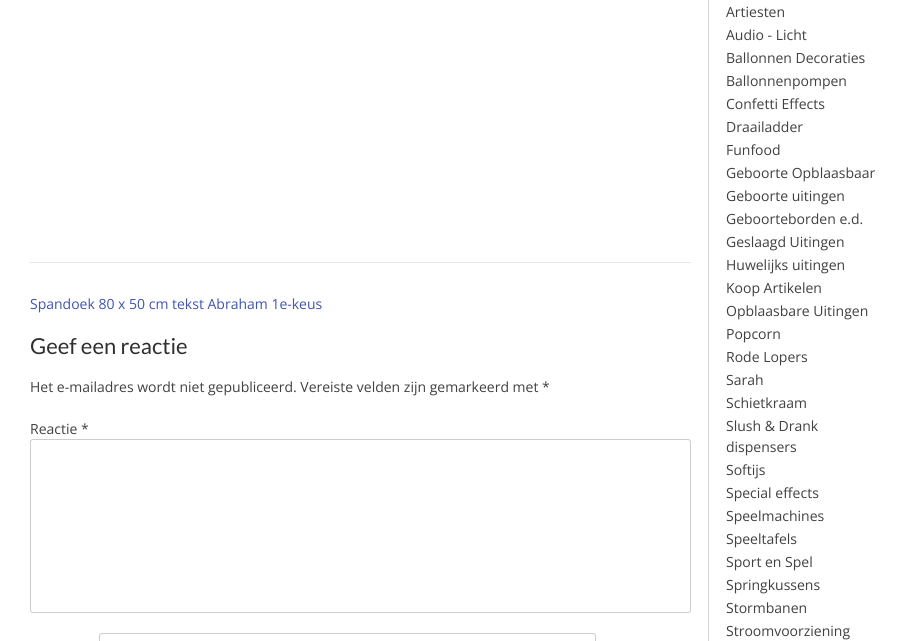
import math
import cairo



def rounded_rect(context, x, y, w, h, r):
    context.new_sub_path()
    for i, (u, v) in enumerate([(x + w - r, y + h - r), (x + r, y + h - r), (x + r, y + r), (x + w - r, y + r)]):
        context.arc(u, v, r, i * math.pi / 2, (i + 1) * math.pi / 2)
    context.close_path()


def draw(context):
    context.set_source_rgb(1, 1, 1)
    context.paint()
    context.set_source_rgb(230 / 255, 230 / 255, 230 / 255)
    context.rectangle(30, 262, 661, 1)
    context.fill()
    rounded_rect(context, 30.5, 439.5, 660, 173, 2.5)
    context.set_source_rgb(204 / 255, 204 / 255, 204 / 255)
    context.set_line_width(1)
    context.stroke()
    rounded_rect(context, 99.5, 633.5, 496, 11, 2.5)
    context.stroke()
    context.set_source_rgb(215 / 255, 215 / 255, 215 / 255)
    context.rectangle(708, 0, 1, 641)
    context.fill()
    context.select_font_face("Open Sans")
    context.set_font_size(14)
    context.set_source_rgb(64 / 255, 84 / 255, 178 / 255)
    context.move_to(30, 309)
    context.show_text("Spandoek 80 x 50 cm tekst Abraham 1e-keus")
    context.select_font_face("Lato")
    context.set_font_size(22)
    context.set_source_rgb(47 / 255, 47 / 255, 47 / 255)
    context.move_to(30, 354)
    context.show_text("Geef een reactie")
    context.select_font_face("Open Sans")
    context.set_font_size(14)
    context.set_source_rgb(64 / 255, 64 / 255, 64 / 255)
    context.move_to(30, 392)
    context.show_text("Het e-mailadres wordt niet gepubliceerd. Vereiste velden zijn gemarkeerd met *")
    context.move_to(30, 434)
    context.show_text("Reactie *")
    context.move_to(726, 17)
    context.show_text("Artiesten")
    context.move_to(726, 40)
    context.show_text("Audio - Licht")
    context.move_to(726, 63)
    context.show_text("Ballonnen Decoraties")
    context.move_to(726, 86)
    context.show_text("Ballonnenpompen")
    context.move_to(726, 109)
    context.show_text("Confetti Effects")
    context.move_to(726, 132)
    context.show_text("Draailadder")
    context.move_to(726, 155)
    context.show_text("Funfood")
    context.move_to(726, 178)
    context.show_text("Geboorte Opblaasbaar")
    context.move_to(726, 201)
    context.show_text("Geboorte uitingen")
    context.move_to(726, 224)
    context.show_text("Geboorteborden e.d.")
    context.move_to(726, 247)
    context.show_text("Geslaagd Uitingen")
    context.move_to(726, 270)
    context.show_text("Huwelijks uitingen")
    context.move_to(726, 293)
    context.show_text("Koop Artikelen")
    context.move_to(726, 316)
    context.show_text("Opblaasbare Uitingen")
    context.move_to(726, 339)
    context.show_text("Popcorn")
    context.move_to(726, 362)
    context.show_text("Rode Lopers")
    context.move_to(726, 385)
    context.show_text("Sarah")
    context.move_to(726, 408)
    context.show_text("Schietkraam")
    context.move_to(726, 431)
    context.show_text("Slush & Drank")
    context.move_to(726, 452)
    context.show_text("dispensers")
    context.move_to(726, 475)
    context.show_text("Softijs")
    context.move_to(726, 498)
    context.show_text("Special effects")
    context.move_to(726, 521)
    context.show_text("Speelmachines")
    context.move_to(726, 544)
    context.show_text("Speeltafels")
    context.move_to(726, 567)
    context.show_text("Sport en Spel")
    context.move_to(726, 590)
    context.show_text("Springkussens")
    context.move_to(726, 613)
    context.show_text("Stormbanen")
    context.move_to(726, 636)
    context.show_text("Stroomvoorziening")


surface = cairo.ImageSurface(cairo.Format.RGB24, 919, 641)
context = cairo.Context(surface)
options = cairo.FontOptions()
options.set_hint_metrics(cairo.HintMetrics.OFF)
options.set_hint_style(cairo.HintStyle.NONE)
context.set_font_options(options)
context.set_miter_limit(4)
draw(context)
surface.write_to_png("out.png")
